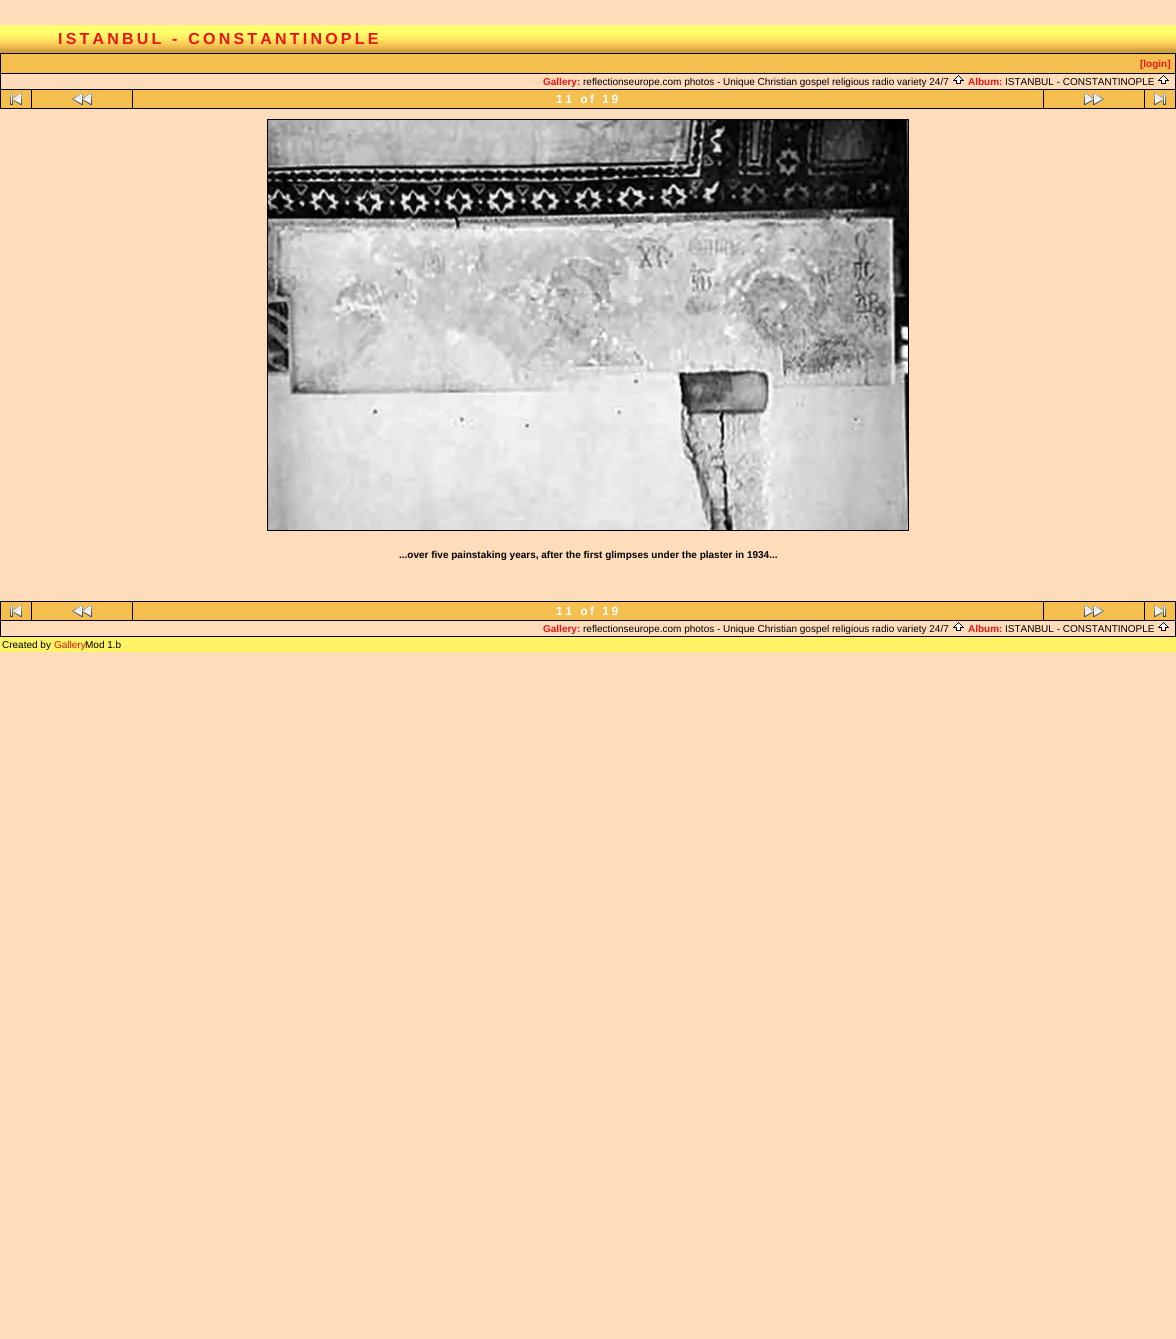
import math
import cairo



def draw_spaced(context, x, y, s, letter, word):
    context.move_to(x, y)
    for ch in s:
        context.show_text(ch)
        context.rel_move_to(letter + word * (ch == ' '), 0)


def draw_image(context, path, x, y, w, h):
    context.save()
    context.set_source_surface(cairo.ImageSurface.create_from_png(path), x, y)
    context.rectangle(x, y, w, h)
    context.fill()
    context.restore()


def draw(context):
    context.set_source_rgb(1, 221 / 255, 187 / 255)
    context.paint()
    draw_image(context, "images/1.png", 0, 25, 1176, 28)
    context.rectangle(0.5, 53.5, 1175, 20)
    context.set_source_rgb(0, 0, 0)
    context.set_line_width(1)
    context.stroke()
    context.set_source_rgb(245 / 255, 191 / 255, 80 / 255)
    context.rectangle(1, 54, 1174, 19)
    context.fill()
    context.set_source_rgb(0, 0, 0)
    context.rectangle(1175, 74, 1, 35)
    context.fill()
    context.rectangle(0, 89, 1176, 1)
    context.fill()
    context.rectangle(0, 74, 1, 16)
    context.fill()
    draw_image(context, "images/2.png", 953, 75, 11, 9)
    draw_image(context, "images/2.png", 1158, 75, 11, 9)
    context.rectangle(0, 108, 1176, 1)
    context.fill()
    context.rectangle(0, 90, 1, 19)
    context.fill()
    context.set_source_rgb(245 / 255, 191 / 255, 80 / 255)
    context.rectangle(1, 90, 1174, 18)
    context.fill()
    context.set_source_rgb(0, 0, 0)
    context.rectangle(31, 90, 1, 18)
    context.fill()
    draw_image(context, "images/3.png", 10, 93, 12, 12)
    context.rectangle(132, 90, 1, 18)
    context.fill()
    draw_image(context, "images/4.png", 72, 93, 20, 12)
    context.rectangle(1043, 90, 1, 18)
    context.fill()
    draw_image(context, "images/5.png", 1084, 93, 20, 12)
    context.rectangle(1144, 90, 1, 18)
    context.fill()
    draw_image(context, "images/6.png", 1154, 93, 12, 12)
    context.rectangle(267.5, 119.5, 641, 411)
    context.stroke()
    draw_image(context, "images/7.png", 268, 120, 640, 410)
    context.rectangle(0.5, 601.5, 1175, 19)
    context.stroke()
    context.set_source_rgb(245 / 255, 191 / 255, 80 / 255)
    context.rectangle(1, 602, 1174, 18)
    context.fill()
    context.set_source_rgb(0, 0, 0)
    context.rectangle(31, 602, 1, 18)
    context.fill()
    draw_image(context, "images/3.png", 10, 605, 12, 12)
    context.rectangle(132, 602, 1, 18)
    context.fill()
    draw_image(context, "images/4.png", 72, 605, 20, 12)
    context.rectangle(1043, 602, 1, 18)
    context.fill()
    draw_image(context, "images/5.png", 1084, 605, 20, 12)
    context.rectangle(1144, 602, 1, 18)
    context.fill()
    draw_image(context, "images/6.png", 1154, 605, 12, 12)
    context.rectangle(1175, 621, 1, 16)
    context.fill()
    context.rectangle(0, 636, 1176, 1)
    context.fill()
    context.rectangle(0, 621, 1, 16)
    context.fill()
    draw_image(context, "images/2.png", 953, 622, 11, 9)
    draw_image(context, "images/2.png", 1158, 622, 11, 9)
    context.set_source_rgb(1, 243 / 255, 102 / 255)
    context.rectangle(0, 637, 1176, 15)
    context.fill()
    context.select_font_face("Liberation Sans", cairo.FontSlant.NORMAL, cairo.FontWeight.BOLD)
    context.set_font_size(16)
    context.set_source_rgb(233 / 255, 20 / 255, 20 / 255)
    draw_spaced(context, 58, 44, "ISTANBUL - CONSTANTINOPLE", 3.2, 0)
    context.set_font_size(10)
    context.move_to(1140, 67)
    context.show_text("[login]")
    context.move_to(543, 85)
    context.show_text("Gallery:")
    context.select_font_face("Liberation Sans")
    context.set_source_rgb(0, 0, 0)
    context.move_to(583, 85)
    context.show_text("reflectionseurope.com photos - Unique Christian gospel religious radio variety 24/7")
    context.select_font_face("Liberation Sans", cairo.FontSlant.NORMAL, cairo.FontWeight.BOLD)
    context.set_source_rgb(233 / 255, 20 / 255, 20 / 255)
    context.move_to(968, 85)
    context.show_text("Album:")
    context.select_font_face("Liberation Sans")
    context.set_source_rgb(0, 0, 0)
    context.move_to(1005, 85)
    context.show_text("ISTANBUL - CONSTANTINOPLE")
    context.select_font_face("Liberation Sans", cairo.FontSlant.NORMAL, cairo.FontWeight.BOLD)
    context.set_font_size(12)
    context.set_source_rgb(1, 1, 1)
    draw_spaced(context, 556, 103, "11 of 19", 2.5, 0)
    context.set_font_size(10)
    context.set_source_rgb(0, 0, 0)
    context.move_to(399, 558)
    context.show_text("...over five painstaking years, after the first glimpses under the plaster in 1934...")
    context.set_font_size(12)
    context.set_source_rgb(1, 1, 1)
    draw_spaced(context, 556, 615, "11 of 19", 2.5, 0)
    context.set_font_size(10)
    context.set_source_rgb(233 / 255, 20 / 255, 20 / 255)
    context.move_to(543, 632)
    context.show_text("Gallery:")
    context.select_font_face("Liberation Sans")
    context.set_source_rgb(0, 0, 0)
    context.move_to(583, 632)
    context.show_text("reflectionseurope.com photos - Unique Christian gospel religious radio variety 24/7")
    context.select_font_face("Liberation Sans", cairo.FontSlant.NORMAL, cairo.FontWeight.BOLD)
    context.set_source_rgb(233 / 255, 20 / 255, 20 / 255)
    context.move_to(968, 632)
    context.show_text("Album:")
    context.select_font_face("Liberation Sans")
    context.set_source_rgb(0, 0, 0)
    context.move_to(1005, 632)
    context.show_text("ISTANBUL - CONSTANTINOPLE")
    context.move_to(2, 648)
    context.show_text("Created by")
    context.set_source_rgb(233 / 255, 20 / 255, 20 / 255)
    context.move_to(54, 648)
    context.show_text("Gallery")
    context.set_source_rgb(0, 0, 0)
    context.move_to(85, 648)
    context.show_text("Mod 1.b")


surface = cairo.ImageSurface(cairo.Format.RGB24, 1176, 1339)
context = cairo.Context(surface)
options = cairo.FontOptions()
options.set_hint_metrics(cairo.HintMetrics.OFF)
options.set_hint_style(cairo.HintStyle.NONE)
context.set_font_options(options)
context.set_miter_limit(4)
draw(context)
surface.write_to_png("out.png")
